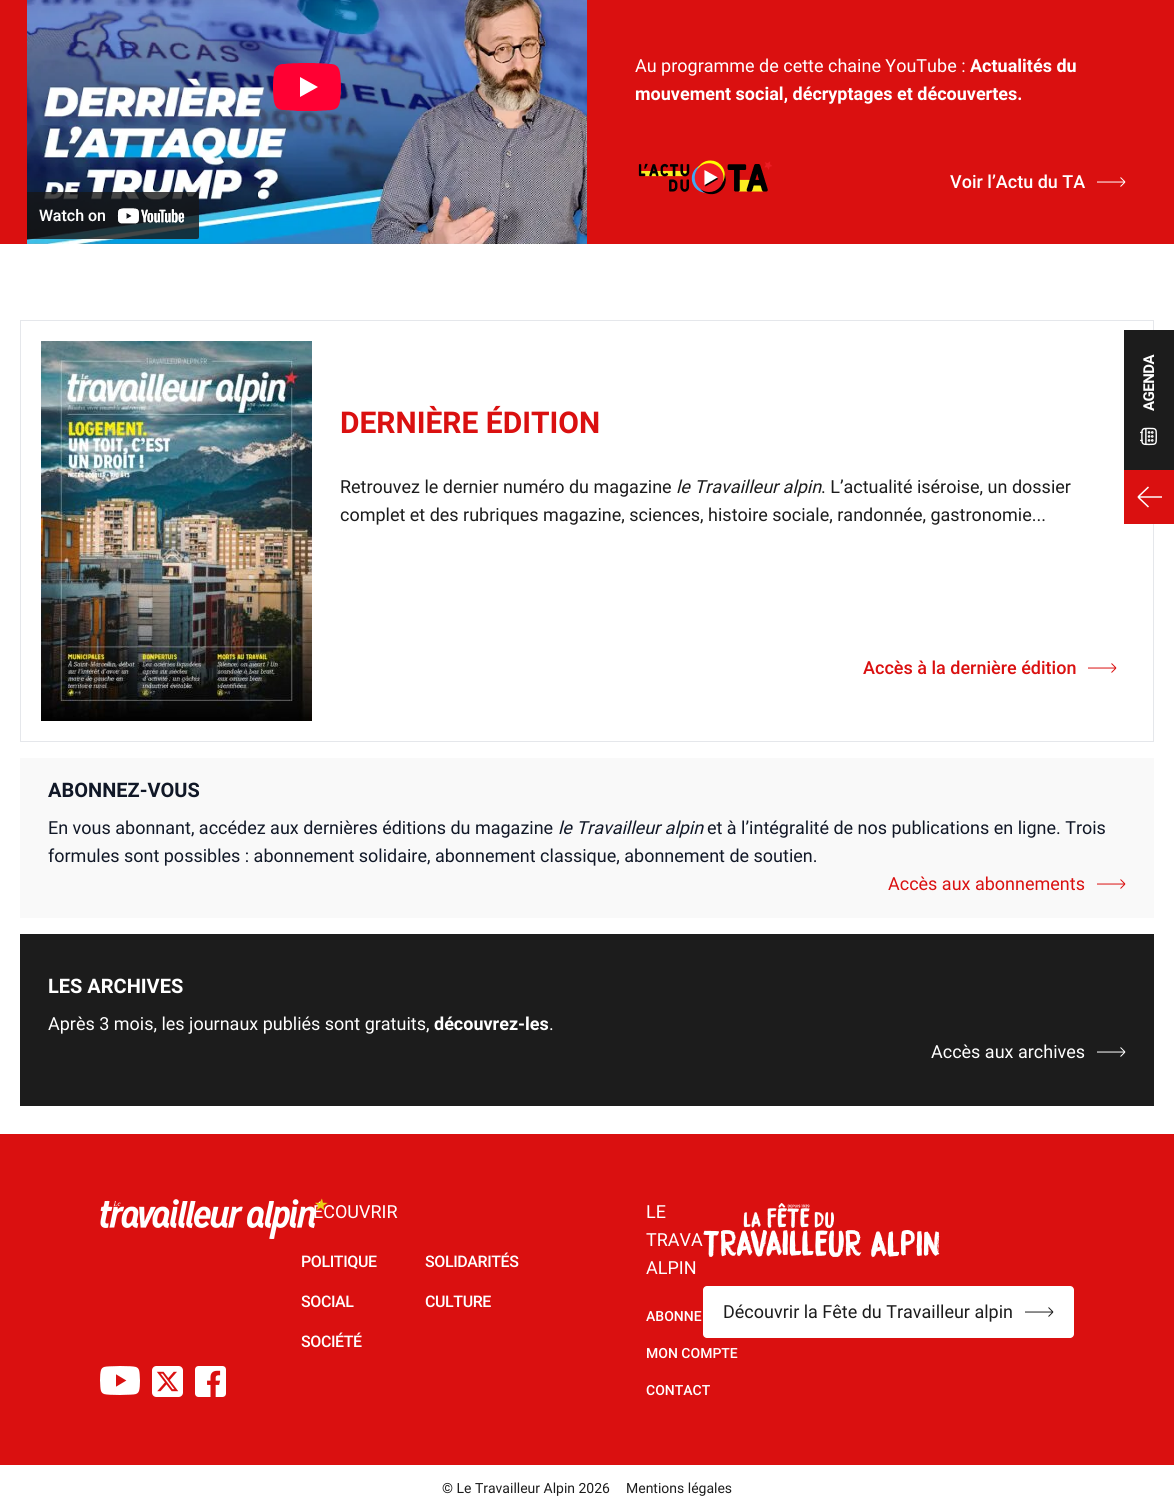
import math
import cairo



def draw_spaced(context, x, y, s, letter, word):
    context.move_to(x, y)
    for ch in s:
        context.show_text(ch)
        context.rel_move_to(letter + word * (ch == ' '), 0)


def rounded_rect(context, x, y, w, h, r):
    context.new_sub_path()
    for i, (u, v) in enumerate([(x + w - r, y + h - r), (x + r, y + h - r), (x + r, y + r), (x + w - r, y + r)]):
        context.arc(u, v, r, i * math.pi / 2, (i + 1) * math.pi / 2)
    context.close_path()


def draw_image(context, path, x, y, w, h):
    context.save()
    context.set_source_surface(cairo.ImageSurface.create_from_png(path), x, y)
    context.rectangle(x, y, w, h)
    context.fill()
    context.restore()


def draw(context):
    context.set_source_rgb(1, 1, 1)
    context.paint()
    context.set_source_rgb(218 / 255, 16 / 255, 16 / 255)
    context.rectangle(0, 0, 1174, 244)
    context.fill()
    draw_image(context, "images/1.png", 27, 0, 560, 244)
    draw_image(context, "images/2.png", 638, 160, 134, 35)
    context.new_path()
    context.move_to(1120.5, 177.5)
    context.line_to(1125, 182)
    context.move_to(1125, 182)
    context.line_to(1120.5, 186.5)
    context.move_to(1125, 182)
    context.line_to(1097, 182)
    context.set_source_rgb(1, 1, 1)
    context.set_line_width(1)
    context.stroke()
    context.rectangle(20.5, 320.5, 1133, 421)
    context.set_source_rgb(229 / 255, 231 / 255, 235 / 255)
    context.stroke()
    draw_image(context, "images/3.png", 41, 341, 271, 380)
    context.new_path()
    context.move_to(1111.5, 663.5)
    context.line_to(1116, 668)
    context.move_to(1116, 668)
    context.line_to(1111.5, 672.5)
    context.move_to(1116, 668)
    context.line_to(1088, 668)
    context.set_source_rgb(218 / 255, 16 / 255, 16 / 255)
    context.stroke()
    context.set_source_rgb(249 / 255, 249 / 255, 249 / 255)
    context.rectangle(20, 758, 1134, 160)
    context.fill()
    context.new_path()
    context.move_to(1120.5, 879.5)
    context.line_to(1125, 884)
    context.move_to(1125, 884)
    context.line_to(1120.5, 888.5)
    context.move_to(1125, 884)
    context.line_to(1097, 884)
    context.set_source_rgb(218 / 255, 16 / 255, 16 / 255)
    context.stroke()
    context.set_source_rgb(28 / 255, 28 / 255, 28 / 255)
    context.rectangle(20, 934, 1134, 172)
    context.fill()
    context.new_path()
    context.move_to(1120.5, 1047.5)
    context.line_to(1125, 1052)
    context.move_to(1125, 1052)
    context.line_to(1120.5, 1056.5)
    context.move_to(1125, 1052)
    context.line_to(1097, 1052)
    context.set_source_rgb(1, 1, 1)
    context.stroke()
    context.set_source_rgb(218 / 255, 16 / 255, 16 / 255)
    context.rectangle(0, 1134, 1174, 331)
    context.fill()
    draw_image(context, "images/5.png", 100, 1366, 40, 29)
    draw_image(context, "images/6.png", 152, 1366, 31, 31)
    draw_image(context, "images/7.png", 195, 1366, 31, 31)
    draw_image(context, "images/8.png", 703, 1203, 237, 55)
    context.set_source_rgb(1, 1, 1)
    rounded_rect(context, 703, 1286, 371, 52, 4)
    context.fill()
    context.new_path()
    context.move_to(1048.5, 1307.5)
    context.line_to(1053, 1312)
    context.move_to(1053, 1312)
    context.line_to(1048.5, 1316.5)
    context.move_to(1053, 1312)
    context.line_to(1025, 1312)
    context.set_source_rgb(28 / 255, 28 / 255, 28 / 255)
    context.stroke()
    context.rectangle(1124, 330, 50, 140)
    context.fill()
    draw_image(context, "images/9.png", 1140, 427, 17, 19)
    context.set_source_rgb(218 / 255, 16 / 255, 16 / 255)
    context.rectangle(1124, 470, 50, 54)
    context.fill()
    context.new_path()
    context.move_to(1148.5, 487)
    context.line_to(1138, 497)
    context.move_to(1138, 497)
    context.line_to(1148.5, 507)
    context.move_to(1138, 497)
    context.line_to(1162, 497)
    context.set_source_rgb(1, 1, 1)
    context.set_line_width(1.5)
    context.stroke()
    context.select_font_face("Roboto")
    context.set_font_size(18)
    context.move_to(635, 72)
    context.show_text("Au programme de cette chaine YouTube :")
    context.select_font_face("Roboto", cairo.FontSlant.NORMAL, cairo.FontWeight.BOLD)
    context.move_to(970, 72)
    context.show_text("Actualités du")
    context.move_to(635, 100)
    context.show_text("mouvement social, décryptages et découvertes.")
    context.select_font_face("Roboto Medium")
    context.move_to(950, 188)
    context.show_text("Voir l’Actu du TA")
    context.select_font_face("Roboto", cairo.FontSlant.NORMAL, cairo.FontWeight.BOLD)
    context.set_font_size(30)
    context.set_source_rgb(218 / 255, 16 / 255, 16 / 255)
    context.move_to(340, 433)
    context.show_text("DERNIÈRE ÉDITION")
    context.select_font_face("Roboto")
    context.set_font_size(18)
    context.set_source_rgb(28 / 255, 28 / 255, 28 / 255)
    context.move_to(340, 493)
    context.show_text("Retrouvez le dernier numéro du magazine")
    context.select_font_face("Roboto", cairo.FontSlant.ITALIC)
    context.move_to(676, 493)
    context.show_text("le Travailleur alpin")
    context.select_font_face("Roboto")
    context.move_to(821, 493)
    context.show_text(". L’actualité iséroise, un dossier")
    context.move_to(340, 521)
    context.show_text("complet et des rubriques magazine, sciences, histoire sociale, randonnée, gastronomie...")
    context.select_font_face("Roboto Medium")
    context.set_source_rgb(218 / 255, 16 / 255, 16 / 255)
    context.move_to(863, 674)
    context.show_text("Accès à la dernière édition")
    context.select_font_face("Roboto", cairo.FontSlant.NORMAL, cairo.FontWeight.BOLD)
    context.set_font_size(20)
    context.set_source_rgb(17 / 255, 24 / 255, 39 / 255)
    context.move_to(48, 797)
    context.show_text("ABONNEZ-VOUS")
    context.select_font_face("Roboto")
    context.set_font_size(18)
    context.move_to(48, 834)
    context.show_text("En vous abonnant, accédez aux dernières éditions du magazine")
    context.select_font_face("Roboto", cairo.FontSlant.ITALIC)
    context.move_to(558, 834)
    context.show_text("le Travailleur alpin")
    context.select_font_face("Roboto")
    context.move_to(707, 834)
    context.show_text("et à l’intégralité de nos publications en ligne. Trois")
    context.move_to(48, 862)
    context.show_text("formules sont possibles : abonnement solidaire, abonnement classique, abonnement de soutien.")
    context.set_source_rgb(218 / 255, 16 / 255, 16 / 255)
    context.move_to(888, 890)
    context.show_text("Accès aux abonnements")
    context.select_font_face("Roboto", cairo.FontSlant.NORMAL, cairo.FontWeight.BOLD)
    context.set_font_size(20)
    context.set_source_rgb(1, 1, 1)
    context.move_to(48, 993)
    context.show_text("LES ARCHIVES")
    context.select_font_face("Roboto")
    context.set_font_size(18)
    context.move_to(48, 1030)
    context.show_text("Après 3 mois, les journaux publiés sont gratuits,")
    context.select_font_face("Roboto", cairo.FontSlant.NORMAL, cairo.FontWeight.BOLD)
    context.move_to(434, 1030)
    context.show_text("découvrez-les")
    context.select_font_face("Roboto")
    context.move_to(549, 1030)
    context.show_text(".")
    context.move_to(931, 1058)
    context.show_text("Accès aux archives")
    context.move_to(313, 1218)
    context.show_text("ÉCOUVRIR")
    draw_image(context, "images/4.png", 100, 1198, 228, 41)
    context.select_font_face("Roboto Medium")
    context.set_font_size(16)
    draw_spaced(context, 301, 1267, "POLITIQUE", -0.4, 0)
    draw_spaced(context, 425, 1267, "SOLIDARITÉS", -0.4, 0)
    draw_spaced(context, 301, 1307, "SOCIAL", -0.4, 0)
    draw_spaced(context, 425, 1307, "CULTURE", -0.4, 0)
    draw_spaced(context, 301, 1347, "SOCIÉTÉ", -0.4, 0)
    context.select_font_face("Roboto")
    context.set_font_size(18)
    context.move_to(646, 1218)
    context.show_text("LE")
    context.move_to(646, 1246)
    context.show_text("TRAVA")
    context.move_to(646, 1274)
    context.show_text("ALPIN")
    context.select_font_face("Roboto Medium")
    context.set_font_size(14)
    context.move_to(646, 1321)
    context.show_text("ABONNE")
    context.move_to(646, 1358)
    context.show_text("MON COMPTE")
    context.move_to(646, 1395)
    context.show_text("CONTACT")
    context.select_font_face("Roboto")
    context.set_font_size(18)
    context.set_source_rgb(28 / 255, 28 / 255, 28 / 255)
    context.move_to(723, 1318)
    context.show_text("Découvrir la Fête du Travailleur alpin")
    context.set_font_size(14)
    context.move_to(442, 1493)
    context.show_text("© Le Travailleur Alpin 2026")
    context.move_to(626, 1493)
    context.show_text("Mentions légales")
    context.select_font_face("Roboto", cairo.FontSlant.NORMAL, cairo.FontWeight.BOLD)
    context.set_font_size(15)
    context.set_source_rgb(1, 1, 1)
    context.save()
    context.translate(1154, 411)
    context.rotate(-90 * math.pi / 180)
    draw_spaced(context, 0, 0, "AGENDA", -0.5, 0)
    context.restore()


surface = cairo.ImageSurface(cairo.Format.RGB24, 1174, 1511)
context = cairo.Context(surface)
options = cairo.FontOptions()
options.set_hint_metrics(cairo.HintMetrics.OFF)
options.set_hint_style(cairo.HintStyle.NONE)
context.set_font_options(options)
context.set_miter_limit(4)
draw(context)
surface.write_to_png("out.png")
